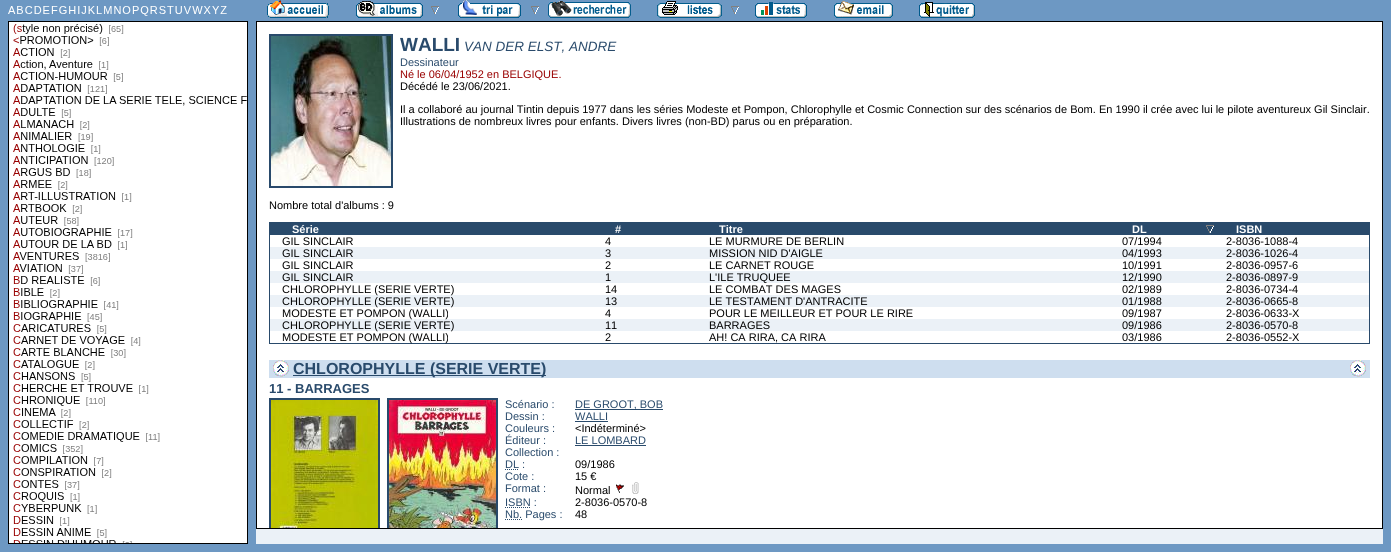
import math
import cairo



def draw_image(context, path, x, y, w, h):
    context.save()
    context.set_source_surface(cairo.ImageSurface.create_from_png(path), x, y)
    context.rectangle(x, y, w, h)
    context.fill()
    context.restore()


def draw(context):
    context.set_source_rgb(109 / 255, 152 / 255, 195 / 255)
    context.paint()
    draw_image(context, "images/1.png", 8, 6, 240, 538)
    draw_image(context, "images/2.png", 267, 0, 62, 18)
    draw_image(context, "images/3.png", 431, 6, 8, 8)
    draw_image(context, "images/4.png", 356, 1, 67, 17)
    draw_image(context, "images/3.png", 531, 6, 8, 8)
    draw_image(context, "images/5.png", 458, 0, 63, 18)
    draw_image(context, "images/6.png", 548, 1, 83, 17)
    draw_image(context, "images/3.png", 731, 6, 8, 8)
    draw_image(context, "images/7.png", 657, 1, 65, 17)
    draw_image(context, "images/8.png", 755, 2, 52, 16)
    draw_image(context, "images/9.png", 834, 1, 59, 17)
    draw_image(context, "images/10.png", 919, 2, 56, 16)
    context.set_source_rgb(1, 1, 1)
    context.rectangle(256.5, 21.5, 1126, 507)
    context.fill_preserve()
    context.set_source_rgb(0, 0, 0)
    context.set_line_width(1)
    context.stroke()
    context.rectangle(270, 35, 122, 152)
    context.set_source_rgb(41 / 255, 74 / 255, 107 / 255)
    context.set_line_width(2)
    context.stroke()
    draw_image(context, "images/11.png", 271, 36, 120, 150)
    context.rectangle(269.5, 222.5, 1100, 121)
    context.set_line_width(1)
    context.stroke()
    context.rectangle(270, 223, 1099, 12)
    context.fill()
    draw_image(context, "images/12.png", 1206, 225, 8, 8)
    context.set_source_rgb(235 / 255, 241 / 255, 247 / 255)
    context.rectangle(270, 247, 1099, 12)
    context.fill()
    context.rectangle(270, 271, 1099, 12)
    context.fill()
    context.rectangle(270, 295, 1099, 12)
    context.fill()
    context.rectangle(270, 319, 1099, 12)
    context.fill()
    context.set_source_rgb(206 / 255, 222 / 255, 239 / 255)
    context.rectangle(269, 360, 1101, 18)
    context.fill()
    draw_image(context, "images/13.png", 273, 360, 16, 17)
    draw_image(context, "images/13.png", 1350, 360, 16, 17)
    context.set_source_rgb(41 / 255, 74 / 255, 107 / 255)
    context.rectangle(293, 375, 253, 1)
    context.fill()
    context.save()
    context.rectangle(257, 22, 1125, 506)
    context.clip()
    context.rectangle(270, 399, 109, 147)
    context.set_line_width(2)
    context.stroke()
    context.restore()
    draw_image(context, "images/14.png", 271, 400, 107, 128)
    context.save()
    context.rectangle(257, 22, 1125, 506)
    context.clip()
    context.rectangle(388, 399, 109, 147)
    context.set_line_width(2)
    context.stroke()
    context.restore()
    draw_image(context, "images/15.png", 389, 400, 107, 128)
    context.rectangle(575, 409, 88, 1)
    context.fill()
    context.rectangle(575, 421, 33, 1)
    context.fill()
    context.rectangle(575, 445, 71, 1)
    context.fill()
    context.new_path()
    context.move_to(505, 469.5)
    context.line_to(519, 469.5)
    context.set_dash([1, 1])
    context.stroke()
    draw_image(context, "images/16.png", 616, 484, 8, 9)
    draw_image(context, "images/17.png", 632, 482, 7, 12)
    context.new_path()
    context.move_to(505, 507.5)
    context.line_to(530.5, 507.5)
    context.stroke()
    context.new_path()
    context.move_to(505, 519.5)
    context.line_to(522, 519.5)
    context.stroke()
    context.set_source_rgb(235 / 255, 241 / 255, 247 / 255)
    context.rectangle(256, 529, 1127, 15)
    context.fill()
    context.select_font_face("Liberation Sans", cairo.FontSlant.NORMAL, cairo.FontWeight.BOLD)
    context.set_font_size(19)
    context.set_source_rgb(41 / 255, 74 / 255, 107 / 255)
    context.move_to(400, 51)
    context.show_text("WALLI")
    context.select_font_face("Liberation Sans", cairo.FontSlant.ITALIC)
    context.set_font_size(13.5)
    context.move_to(464, 51)
    context.show_text("VAN DER ELST, ANDRE")
    context.select_font_face("Liberation Sans")
    context.set_font_size(11)
    context.move_to(400, 66)
    context.show_text("Dessinateur")
    context.set_source_rgb(153 / 255, 0, 0)
    context.move_to(400, 78)
    context.show_text("Né le 06/04/1952 en BELGIQUE.")
    context.set_source_rgb(0, 0, 0)
    context.move_to(400, 90)
    context.show_text("Décédé le 23/06/2021.")
    context.move_to(400, 113)
    context.show_text("Il a collaboré au journal Tintin depuis 1977 dans les séries Modeste et Pompon, Chlorophylle et Cosmic Connection sur des scénarios de Bom. En 1990 il crée avec lui le pilote aventureux Gil Sinclair.")
    context.move_to(400, 125)
    context.show_text("Illustrations de nombreux livres pour enfants. Divers livres (non-BD) parus ou en préparation.")
    context.move_to(269, 209)
    context.show_text("Nombre total d'albums : 9")
    context.select_font_face("Liberation Sans", cairo.FontSlant.NORMAL, cairo.FontWeight.BOLD)
    context.set_source_rgb(1, 1, 1)
    context.move_to(292, 233)
    context.show_text("Série")
    context.move_to(615, 233)
    context.show_text("#")
    context.move_to(719, 233)
    context.show_text("Titre")
    context.move_to(1132, 233)
    context.show_text("DL")
    context.move_to(1236, 233)
    context.show_text("ISBN")
    context.select_font_face("Liberation Sans")
    context.set_source_rgb(0, 0, 0)
    context.move_to(282, 245)
    context.show_text("GIL SINCLAIR")
    context.move_to(605, 245)
    context.show_text("4")
    context.move_to(709, 245)
    context.show_text("LE MURMURE DE BERLIN")
    context.move_to(1122, 245)
    context.show_text("07/1994")
    context.move_to(1226, 245)
    context.show_text("2-8036-1088-4")
    context.move_to(282, 257)
    context.show_text("GIL SINCLAIR")
    context.move_to(605, 257)
    context.show_text("3")
    context.move_to(709, 257)
    context.show_text("MISSION NID D'AIGLE")
    context.move_to(1122, 257)
    context.show_text("04/1993")
    context.move_to(1226, 257)
    context.show_text("2-8036-1026-4")
    context.move_to(282, 269)
    context.show_text("GIL SINCLAIR")
    context.move_to(605, 269)
    context.show_text("2")
    context.move_to(709, 269)
    context.show_text("LE CARNET ROUGE")
    context.move_to(1122, 269)
    context.show_text("10/1991")
    context.move_to(1226, 269)
    context.show_text("2-8036-0957-6")
    context.move_to(282, 281)
    context.show_text("GIL SINCLAIR")
    context.move_to(605, 281)
    context.show_text("1")
    context.move_to(709, 281)
    context.show_text("L'ILE TRUQUEE")
    context.move_to(1122, 281)
    context.show_text("12/1990")
    context.move_to(1226, 281)
    context.show_text("2-8036-0897-9")
    context.move_to(282, 293)
    context.show_text("CHLOROPHYLLE (SERIE VERTE)")
    context.move_to(605, 293)
    context.show_text("14")
    context.move_to(709, 293)
    context.show_text("LE COMBAT DES MAGES")
    context.move_to(1122, 293)
    context.show_text("02/1989")
    context.move_to(1226, 293)
    context.show_text("2-8036-0734-4")
    context.move_to(282, 305)
    context.show_text("CHLOROPHYLLE (SERIE VERTE)")
    context.move_to(605, 305)
    context.show_text("13")
    context.move_to(709, 305)
    context.show_text("LE TESTAMENT D'ANTRACITE")
    context.move_to(1122, 305)
    context.show_text("01/1988")
    context.move_to(1226, 305)
    context.show_text("2-8036-0665-8")
    context.move_to(282, 317)
    context.show_text("MODESTE ET POMPON (WALLI)")
    context.move_to(605, 317)
    context.show_text("4")
    context.move_to(709, 317)
    context.show_text("POUR LE MEILLEUR ET POUR LE RIRE")
    context.move_to(1122, 317)
    context.show_text("09/1987")
    context.move_to(1226, 317)
    context.show_text("2-8036-0633-X")
    context.move_to(282, 329)
    context.show_text("CHLOROPHYLLE (SERIE VERTE)")
    context.move_to(605, 329)
    context.show_text("11")
    context.move_to(709, 329)
    context.show_text("BARRAGES")
    context.move_to(1122, 329)
    context.show_text("09/1986")
    context.move_to(1226, 329)
    context.show_text("2-8036-0570-8")
    context.move_to(282, 341)
    context.show_text("MODESTE ET POMPON (WALLI)")
    context.move_to(605, 341)
    context.show_text("2")
    context.move_to(709, 341)
    context.show_text("AH! CA RIRA, CA RIRA")
    context.move_to(1122, 341)
    context.show_text("03/1986")
    context.move_to(1226, 341)
    context.show_text("2-8036-0552-X")
    context.select_font_face("Liberation Sans", cairo.FontSlant.NORMAL, cairo.FontWeight.BOLD)
    context.set_font_size(16)
    context.set_source_rgb(41 / 255, 74 / 255, 107 / 255)
    context.move_to(293, 374)
    context.show_text("CHLOROPHYLLE (SERIE VERTE)")
    context.set_font_size(13)
    context.move_to(269, 393)
    context.show_text("11 - BARRAGES")
    context.select_font_face("Liberation Sans")
    context.set_font_size(11)
    context.move_to(505, 408)
    context.show_text("Scénario :")
    context.move_to(575, 408)
    context.show_text("DE GROOT, BOB")
    context.move_to(505, 420)
    context.show_text("Dessin :")
    context.move_to(575, 420)
    context.show_text("WALLI")
    context.move_to(505, 432)
    context.show_text("Couleurs :")
    context.set_source_rgb(0, 0, 0)
    context.move_to(575, 432)
    context.show_text("<Indéterminé>")
    context.set_source_rgb(41 / 255, 74 / 255, 107 / 255)
    context.move_to(505, 444)
    context.show_text("Éditeur :")
    context.move_to(575, 444)
    context.show_text("LE LOMBARD")
    context.move_to(505, 456)
    context.show_text("Collection :")
    context.move_to(505, 468)
    context.show_text("DL :")
    context.set_source_rgb(0, 0, 0)
    context.move_to(575, 468)
    context.show_text("09/1986")
    context.set_source_rgb(41 / 255, 74 / 255, 107 / 255)
    context.move_to(505, 480)
    context.show_text("Cote :")
    context.set_source_rgb(0, 0, 0)
    context.move_to(575, 480)
    context.show_text("15 €")
    context.set_source_rgb(41 / 255, 74 / 255, 107 / 255)
    context.move_to(505, 492)
    context.show_text("Format :")
    context.set_source_rgb(0, 0, 0)
    context.move_to(575, 494)
    context.show_text("Normal")
    context.set_source_rgb(41 / 255, 74 / 255, 107 / 255)
    context.move_to(505, 506)
    context.show_text("ISBN :")
    context.set_source_rgb(0, 0, 0)
    context.move_to(575, 506)
    context.show_text("2-8036-0570-8")
    context.set_source_rgb(41 / 255, 74 / 255, 107 / 255)
    context.move_to(505, 518)
    context.show_text("Nb. Pages :")
    context.set_source_rgb(0, 0, 0)
    context.move_to(575, 518)
    context.show_text("48")


surface = cairo.ImageSurface(cairo.Format.RGB24, 1391, 552)
context = cairo.Context(surface)
options = cairo.FontOptions()
options.set_hint_metrics(cairo.HintMetrics.OFF)
options.set_hint_style(cairo.HintStyle.NONE)
context.set_font_options(options)
context.set_miter_limit(4)
draw(context)
surface.write_to_png("out.png")
